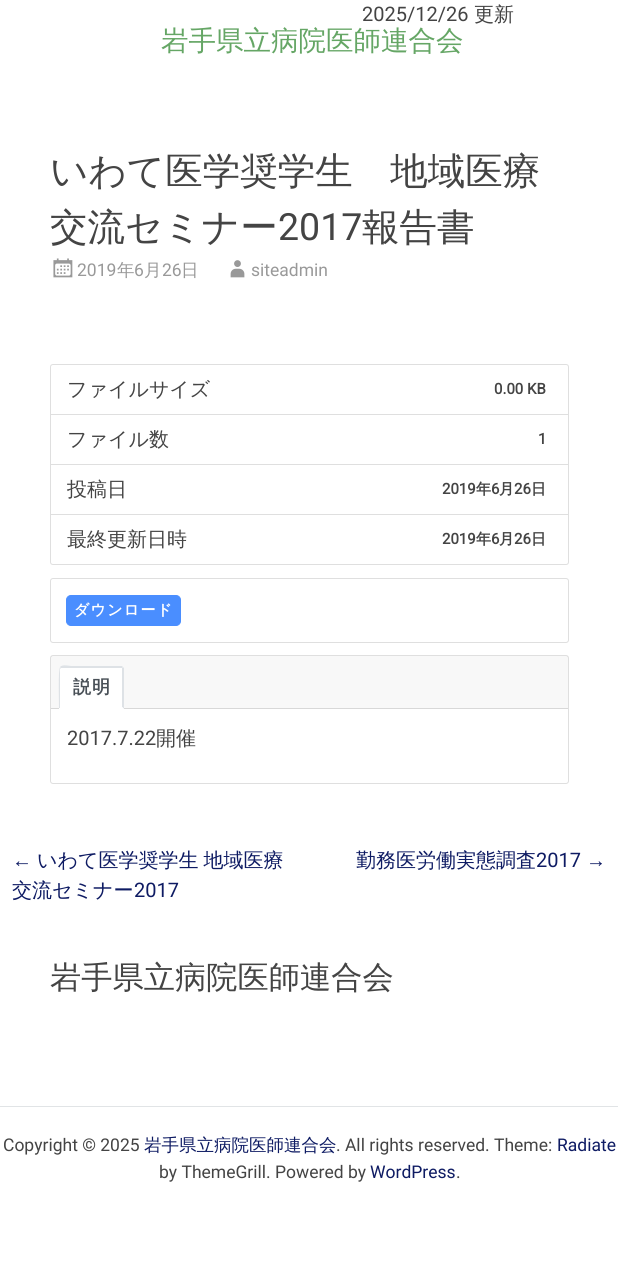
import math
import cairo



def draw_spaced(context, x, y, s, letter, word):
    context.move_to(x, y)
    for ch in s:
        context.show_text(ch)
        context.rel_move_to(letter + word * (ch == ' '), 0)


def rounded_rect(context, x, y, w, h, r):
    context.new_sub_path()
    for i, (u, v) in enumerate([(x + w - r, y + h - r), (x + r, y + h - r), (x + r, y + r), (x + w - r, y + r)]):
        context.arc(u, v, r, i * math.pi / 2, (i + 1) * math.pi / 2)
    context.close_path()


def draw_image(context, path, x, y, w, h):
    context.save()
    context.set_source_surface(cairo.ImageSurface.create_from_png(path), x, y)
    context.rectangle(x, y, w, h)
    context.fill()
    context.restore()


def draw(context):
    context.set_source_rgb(1, 1, 1)
    context.paint()
    draw_image(context, "images/1.png", 53, 258, 20, 20)
    draw_image(context, "images/2.png", 230, 260, 15, 18)
    context.new_path()
    context.move_to(53, 364.5)
    context.line_to(566, 364.5)
    context.curve_to(567.5, 364.5, 568.5, 365.5, 568.5, 367)
    context.line_to(568.5, 414.5)
    context.line_to(50.5, 414.5)
    context.line_to(50.5, 367)
    context.curve_to(50.5, 365.5, 51.5, 364.5, 53, 364.5)
    context.close_path()
    context.set_source_rgb(223 / 255, 223 / 255, 223 / 255)
    context.set_line_width(1)
    context.stroke()
    context.rectangle(50.5, 414.5, 518, 50)
    context.stroke()
    context.rectangle(50.5, 464.5, 518, 50)
    context.stroke()
    context.set_source_rgb(1, 1, 1)
    context.new_path()
    context.move_to(50.5, 514.5)
    context.line_to(568.5, 514.5)
    context.line_to(568.5, 562)
    context.curve_to(568.5, 563.5, 567.5, 564.5, 566, 564.5)
    context.line_to(53, 564.5)
    context.curve_to(51.5, 564.5, 50.5, 563.5, 50.5, 562)
    context.close_path()
    context.fill_preserve()
    context.set_source_rgb(223 / 255, 223 / 255, 223 / 255)
    context.stroke()
    rounded_rect(context, 50.5, 578.5, 518, 64, 2.5)
    context.stroke()
    context.set_source_rgb(74 / 255, 142 / 255, 1)
    rounded_rect(context, 66.5, 595.5, 114, 30, 4.5)
    context.fill_preserve()
    context.stroke()
    rounded_rect(context, 50.5, 655.5, 518, 128, 2.5)
    context.set_source_rgb(223 / 255, 223 / 255, 223 / 255)
    context.stroke()
    context.set_source_rgba(0, 0, 0, 0.03)
    context.rectangle(51, 656, 517, 52)
    context.fill()
    context.set_source_rgb(216 / 255, 216 / 255, 216 / 255)
    context.rectangle(51, 708, 517, 1)
    context.fill()
    context.set_source_rgb(1, 1, 1)
    context.new_path()
    context.move_to(62, 666)
    context.line_to(121, 666)
    context.curve_to(122.5, 666, 124, 667.5, 124, 669)
    context.line_to(124, 709)
    context.line_to(59, 709)
    context.line_to(59, 669)
    context.curve_to(59, 667.5, 60.5, 666, 62, 666)
    context.close_path()
    context.fill()
    context.set_source_rgb(222 / 255, 226 / 255, 230 / 255)
    context.new_path()
    context.move_to(62, 668)
    context.line_to(61, 668)
    context.line_to(60, 667)
    context.curve_to(62, 664, 70, 666, 71, 666)
    context.line_to(122, 666)
    context.line_to(123, 667)
    context.line_to(122, 668)
    context.line_to(121, 668)
    context.close_path()
    context.fill()
    context.new_path()
    context.move_to(123, 667)
    context.line_to(124, 668)
    context.line_to(124, 709)
    context.line_to(122, 707)
    context.line_to(122, 668)
    context.close_path()
    context.fill()
    context.set_source_rgb(1, 1, 1)
    context.new_path()
    context.move_to(124, 709)
    context.line_to(59, 709)
    context.line_to(60, 708)
    context.line_to(122, 708)
    context.line_to(122, 707)
    context.close_path()
    context.fill()
    context.set_source_rgb(222 / 255, 226 / 255, 230 / 255)
    context.new_path()
    context.move_to(59, 708)
    context.curve_to(59, 703, 58, 669, 60, 667)
    context.line_to(61, 668)
    context.line_to(60, 669)
    context.line_to(60, 708)
    context.close_path()
    context.fill()
    context.set_source_rgb(225 / 255, 228 / 255, 230 / 255)
    context.rectangle(0, 1106, 618, 1)
    context.fill()
    context.select_font_face("Roboto")
    context.set_font_size(20)
    context.set_source_rgb(68 / 255, 68 / 255, 68 / 255)
    context.move_to(362, 21)
    context.show_text("2025/12/26")
    context.select_font_face("WenQuanYi Zen Hei Medium")
    context.move_to(474, 21)
    context.show_text("更新")
    context.set_font_size(27.5)
    context.set_source_rgb(101 / 255, 166 / 255, 101 / 255)
    context.move_to(161, 50)
    context.show_text("岩手県立病院医師連合会")
    context.set_font_size(37.5)
    context.set_source_rgb(68 / 255, 68 / 255, 68 / 255)
    context.move_to(50, 184)
    context.show_text("いわて医学奨学生　地域医療")
    context.move_to(50, 240)
    context.show_text("交流セミナー")
    context.select_font_face("Roboto")
    context.move_to(278, 240)
    context.show_text("2017")
    context.select_font_face("WenQuanYi Zen Hei Medium")
    context.move_to(362, 240)
    context.show_text("報告書")
    context.select_font_face("Roboto")
    context.set_font_size(17.5)
    context.set_source_rgb(153 / 255, 153 / 255, 153 / 255)
    context.move_to(77, 276)
    context.show_text("2019")
    context.select_font_face("WenQuanYi Zen Hei Medium")
    context.move_to(117, 276)
    context.show_text("年")
    context.select_font_face("Roboto")
    context.move_to(134, 276)
    context.show_text("6")
    context.select_font_face("WenQuanYi Zen Hei Medium")
    context.move_to(144, 276)
    context.show_text("月")
    context.select_font_face("Roboto")
    context.move_to(162, 276)
    context.show_text("26")
    context.select_font_face("WenQuanYi Zen Hei Medium")
    context.move_to(181, 276)
    context.show_text("日")
    context.select_font_face("Roboto")
    context.move_to(251, 276)
    context.show_text("siteadmin")
    context.select_font_face("WenQuanYi Zen Hei Medium")
    context.set_font_size(20)
    context.set_source_rgb(68 / 255, 68 / 255, 68 / 255)
    context.move_to(67, 396)
    context.show_text("ファイルサイズ")
    context.select_font_face("Roboto", cairo.FontSlant.NORMAL, cairo.FontWeight.BOLD)
    context.set_font_size(15)
    context.move_to(494, 394)
    context.show_text("0.00 KB")
    context.select_font_face("WenQuanYi Zen Hei Medium")
    context.set_font_size(20)
    context.move_to(67, 446)
    context.show_text("ファイル数")
    context.select_font_face("Roboto", cairo.FontSlant.NORMAL, cairo.FontWeight.BOLD)
    context.set_font_size(15)
    context.move_to(538, 444)
    context.show_text("1")
    context.select_font_face("WenQuanYi Zen Hei Medium")
    context.set_font_size(20)
    context.move_to(67, 496)
    context.show_text("投稿日")
    context.select_font_face("Roboto", cairo.FontSlant.NORMAL, cairo.FontWeight.BOLD)
    context.set_font_size(15)
    context.move_to(442, 494)
    context.show_text("2019")
    context.select_font_face("WenQuanYi Zen Hei", cairo.FontSlant.NORMAL, cairo.FontWeight.BOLD)
    context.move_to(476, 494)
    context.show_text("年")
    context.select_font_face("Roboto", cairo.FontSlant.NORMAL, cairo.FontWeight.BOLD)
    context.move_to(491, 494)
    context.show_text("6")
    context.select_font_face("WenQuanYi Zen Hei", cairo.FontSlant.NORMAL, cairo.FontWeight.BOLD)
    context.move_to(499, 494)
    context.show_text("月")
    context.select_font_face("Roboto", cairo.FontSlant.NORMAL, cairo.FontWeight.BOLD)
    context.move_to(514, 494)
    context.show_text("26")
    context.select_font_face("WenQuanYi Zen Hei", cairo.FontSlant.NORMAL, cairo.FontWeight.BOLD)
    context.move_to(531, 494)
    context.show_text("日")
    context.select_font_face("WenQuanYi Zen Hei Medium")
    context.set_font_size(20)
    context.move_to(67, 546)
    context.show_text("最終更新日時")
    context.select_font_face("Roboto", cairo.FontSlant.NORMAL, cairo.FontWeight.BOLD)
    context.set_font_size(15)
    context.move_to(442, 544)
    context.show_text("2019")
    context.select_font_face("WenQuanYi Zen Hei", cairo.FontSlant.NORMAL, cairo.FontWeight.BOLD)
    context.move_to(476, 544)
    context.show_text("年")
    context.select_font_face("Roboto", cairo.FontSlant.NORMAL, cairo.FontWeight.BOLD)
    context.move_to(491, 544)
    context.show_text("6")
    context.select_font_face("WenQuanYi Zen Hei", cairo.FontSlant.NORMAL, cairo.FontWeight.BOLD)
    context.move_to(499, 544)
    context.show_text("月")
    context.select_font_face("Roboto", cairo.FontSlant.NORMAL, cairo.FontWeight.BOLD)
    context.move_to(514, 544)
    context.show_text("26")
    context.select_font_face("WenQuanYi Zen Hei", cairo.FontSlant.NORMAL, cairo.FontWeight.BOLD)
    context.move_to(531, 544)
    context.show_text("日")
    context.set_source_rgb(1, 1, 1)
    draw_spaced(context, 74, 615, "ダウンロード", 1.25, 0)
    context.set_font_size(18)
    context.set_source_rgb(73 / 255, 80 / 255, 87 / 255)
    draw_spaced(context, 73, 693, "説明", 1, 0)
    context.select_font_face("Roboto")
    context.set_font_size(20)
    context.set_source_rgb(68 / 255, 68 / 255, 68 / 255)
    context.move_to(67, 745)
    context.show_text("2017.7.22")
    context.select_font_face("WenQuanYi Zen Hei Medium")
    context.move_to(156, 745)
    context.show_text("開催")
    context.select_font_face("Liberation Sans")
    context.set_source_rgb(14 / 255, 27 / 255, 99 / 255)
    context.move_to(12, 867)
    context.show_text("←")
    context.select_font_face("WenQuanYi Zen Hei Medium")
    draw_spaced(context, 37, 867, "いわて医学奨学生 地域医療", 0, -1)
    context.move_to(12, 897)
    context.show_text("交流セミナー")
    context.select_font_face("Roboto")
    context.move_to(134, 897)
    context.show_text("2017")
    context.select_font_face("WenQuanYi Zen Hei Medium")
    context.move_to(356, 867)
    context.show_text("勤務医労働実態調査")
    context.select_font_face("Roboto")
    context.move_to(536, 867)
    context.show_text("2017")
    context.select_font_face("Liberation Sans")
    context.move_to(586, 867)
    context.show_text("→")
    context.select_font_face("WenQuanYi Zen Hei Medium")
    context.set_font_size(31.25)
    context.set_source_rgb(68 / 255, 68 / 255, 68 / 255)
    context.move_to(50, 988)
    context.show_text("岩手県立病院医師連合会")
    context.select_font_face("Roboto")
    context.set_font_size(17.5)
    context.move_to(3, 1151)
    context.show_text("Copyright © 2025")
    context.select_font_face("WenQuanYi Zen Hei Medium")
    context.set_source_rgb(14 / 255, 27 / 255, 99 / 255)
    context.move_to(144, 1151)
    context.show_text("岩手県立病院医師連合会")
    context.select_font_face("Roboto")
    context.set_source_rgb(68 / 255, 68 / 255, 68 / 255)
    context.move_to(336, 1151)
    context.show_text(". All rights reserved. Theme:")
    context.set_source_rgb(14 / 255, 27 / 255, 99 / 255)
    context.move_to(557, 1151)
    context.show_text("Radiate")
    context.set_source_rgb(68 / 255, 68 / 255, 68 / 255)
    context.move_to(159, 1178)
    context.show_text("by ThemeGrill. Powered by")
    context.set_source_rgb(14 / 255, 27 / 255, 99 / 255)
    context.move_to(370, 1178)
    context.show_text("WordPress")
    context.set_source_rgb(68 / 255, 68 / 255, 68 / 255)
    context.move_to(456, 1178)
    context.show_text(".")


surface = cairo.ImageSurface(cairo.Format.RGB24, 618, 1285)
context = cairo.Context(surface)
options = cairo.FontOptions()
options.set_hint_metrics(cairo.HintMetrics.OFF)
options.set_hint_style(cairo.HintStyle.NONE)
context.set_font_options(options)
context.set_miter_limit(4)
draw(context)
surface.write_to_png("out.png")
